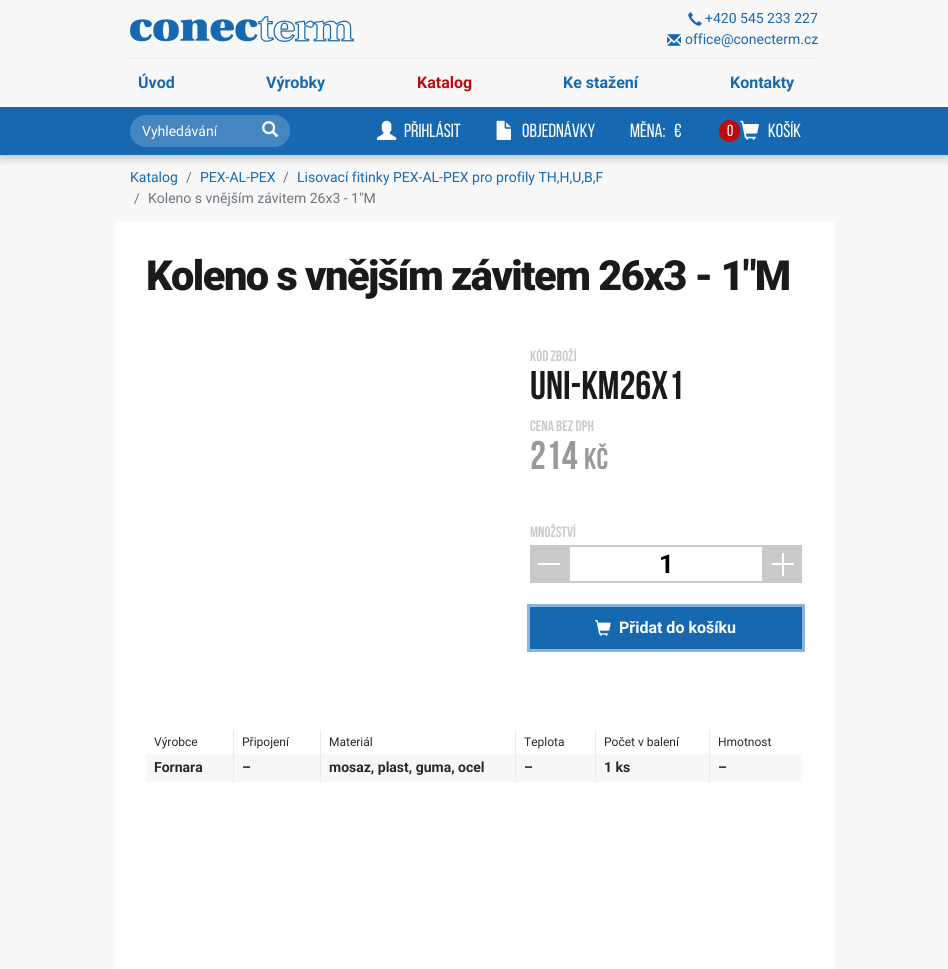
import math
import cairo



def draw_spaced(context, x, y, s, letter, word):
    context.move_to(x, y)
    for ch in s:
        context.show_text(ch)
        context.rel_move_to(letter + word * (ch == ' '), 0)


def rounded_rect(context, x, y, w, h, r):
    context.new_sub_path()
    for i, (u, v) in enumerate([(x + w - r, y + h - r), (x + r, y + h - r), (x + r, y + r), (x + w - r, y + r)]):
        context.arc(u, v, r, i * math.pi / 2, (i + 1) * math.pi / 2)
    context.close_path()


def draw_shadow(context, x, y, w, h, r, blur, alpha):
    context.push_group_with_content(cairo.Content.ALPHA)
    context.set_operator(cairo.Operator.SOURCE)
    for i in range(15, -16, -2):
        e = blur * i / 6
        if min(w, h) + 2 * e > 0:
            context.set_source_rgba(0, 0, 0, alpha * math.erfc((i - 1) / 8.5) / 2)
            rounded_rect(context, x - e, y - e, w + 2 * e, h + 2 * e, max(0, min(r + e + blur * .6, min(w, h) / 2 + e)))
            context.fill()
    context.mask(context.pop_group())


def draw_image(context, path, x, y, w, h):
    context.save()
    context.set_source_surface(cairo.ImageSurface.create_from_png(path), x, y)
    context.rectangle(x, y, w, h)
    context.fill()
    context.restore()


def draw(context):
    context.set_source_rgb(248 / 255, 248 / 255, 248 / 255)
    context.paint()
    context.save()
    context.rectangle(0, 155, 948, 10)
    context.clip()
    context.set_source_rgb(17 / 255, 17 / 255, 17 / 255)
    draw_shadow(context, 0, 1, 948, 155, 0, 6, 0.35)
    context.restore()
    draw_image(context, "images/1.png", 130, 16, 224, 26)
    draw_image(context, "images/2.png", 688, 12, 14, 14)
    draw_image(context, "images/3.png", 667, 34, 14, 12)
    context.set_source_rgb(233 / 255, 236 / 255, 239 / 255)
    context.rectangle(130, 58, 688, 1)
    context.fill()
    context.set_source_rgb(22 / 255, 104 / 255, 177 / 255)
    context.rectangle(0, 107, 948, 48)
    context.fill()
    context.set_source_rgb(69 / 255, 134 / 255, 193 / 255)
    rounded_rect(context, 130, 115, 160, 32, 16)
    context.fill()
    context.new_path()
    context.move_to(250, 115)
    context.line_to(274, 115)
    context.curve_to(283, 115, 290, 122, 290, 131)
    context.curve_to(290, 140, 283, 147, 274, 147)
    context.line_to(250, 147)
    context.close_path()
    context.fill()
    draw_image(context, "images/4.png", 262, 121, 17, 17)
    draw_image(context, "images/5.png", 377, 120, 20, 20)
    draw_image(context, "images/6.png", 496, 120, 15, 20)
    context.set_source_rgb(189 / 255, 10 / 255, 10 / 255)
    rounded_rect(context, 719, 120, 21, 22, 10.5)
    context.fill()
    draw_image(context, "images/7.png", 740, 120, 19, 20)
    context.set_source_rgb(1, 1, 1)
    context.rectangle(114, 221, 720, 748)
    context.fill()
    context.set_source_rgb(202 / 255, 202 / 255, 202 / 255)
    context.rectangle(530, 545, 38, 38)
    context.fill()
    context.set_source_rgb(1, 1, 1)
    context.rectangle(538, 563, 22, 2)
    context.fill()
    context.rectangle(569, 546, 194, 36)
    context.set_source_rgb(202 / 255, 202 / 255, 202 / 255)
    context.stroke()
    context.rectangle(764, 545, 38, 38)
    context.fill()
    context.set_source_rgb(1, 1, 1)
    context.rectangle(782, 553, 2, 23)
    context.fill()
    context.rectangle(772, 563, 22, 2)
    context.fill()
    context.rectangle(528.5, 605.5, 275, 45)
    context.set_source_rgb(139 / 255, 180 / 255, 216 / 255)
    context.set_line_width(3)
    context.stroke()
    context.set_source_rgb(22 / 255, 104 / 255, 177 / 255)
    context.rectangle(530, 607, 272, 42)
    context.fill()
    draw_image(context, "images/8.png", 595, 620, 16, 16)
    context.set_source_rgb(233 / 255, 236 / 255, 239 / 255)
    context.rectangle(233, 730, 1, 52)
    context.fill()
    context.rectangle(320, 730, 1, 52)
    context.fill()
    context.rectangle(515, 730, 1, 52)
    context.fill()
    context.rectangle(595, 730, 1, 52)
    context.fill()
    context.rectangle(709, 730, 1, 52)
    context.fill()
    context.set_source_rgb(248 / 255, 248 / 255, 248 / 255)
    context.rectangle(146, 754, 87, 28)
    context.fill()
    context.rectangle(234, 754, 86, 28)
    context.fill()
    context.rectangle(321, 754, 194, 28)
    context.fill()
    context.rectangle(516, 754, 79, 28)
    context.fill()
    context.rectangle(596, 754, 113, 28)
    context.fill()
    context.rectangle(710, 754, 92, 28)
    context.fill()
    context.select_font_face("Roboto")
    context.set_font_size(14)
    context.set_source_rgb(22 / 255, 104 / 255, 177 / 255)
    context.move_to(705, 23)
    context.show_text("+420 545 233 227")
    context.move_to(685, 44)
    context.show_text("office@conecterm.cz")
    context.select_font_face("Roboto", cairo.FontSlant.NORMAL, cairo.FontWeight.BOLD)
    context.set_font_size(16)
    context.move_to(138, 88)
    context.show_text("Úvod")
    context.move_to(266, 88)
    context.show_text("Výrobky")
    context.set_source_rgb(189 / 255, 10 / 255, 10 / 255)
    context.move_to(417, 88)
    context.show_text("Katalog")
    context.set_source_rgb(22 / 255, 104 / 255, 177 / 255)
    context.move_to(563, 88)
    context.show_text("Ke stažení")
    context.move_to(730, 88)
    context.show_text("Kontakty")
    context.select_font_face("Roboto")
    context.set_font_size(14)
    context.set_source_rgb(1, 1, 1)
    context.move_to(142, 136)
    context.show_text("Vyhledávání")
    context.select_font_face("Bebas Neue")
    context.set_font_size(19)
    context.move_to(404, 137)
    context.show_text("Přihlásit")
    context.move_to(522, 137)
    context.show_text("Objednávky")
    context.move_to(630, 137)
    context.show_text("Měna:")
    context.move_to(674, 137)
    context.show_text("€")
    context.set_font_size(16)
    context.move_to(727, 136)
    context.show_text("0")
    context.set_font_size(19)
    context.move_to(768, 137)
    context.show_text("Košík")
    context.select_font_face("Roboto")
    context.set_font_size(14)
    context.set_source_rgb(22 / 255, 104 / 255, 177 / 255)
    context.move_to(130, 182)
    context.show_text("Katalog")
    context.set_source_rgb(108 / 255, 117 / 255, 125 / 255)
    context.move_to(186, 182)
    context.show_text("/")
    context.set_source_rgb(22 / 255, 104 / 255, 177 / 255)
    context.move_to(200, 182)
    context.show_text("PEX-AL-PEX")
    context.set_source_rgb(108 / 255, 117 / 255, 125 / 255)
    context.move_to(283, 182)
    context.show_text("/")
    context.set_source_rgb(22 / 255, 104 / 255, 177 / 255)
    context.move_to(297, 182)
    context.show_text("Lisovací fitinky PEX-AL-PEX pro profily TH,H,U,B,F")
    context.set_source_rgb(108 / 255, 117 / 255, 125 / 255)
    context.move_to(134, 203)
    context.show_text("/")
    context.move_to(148, 203)
    context.show_text("Koleno s vnějším závitem 26x3 - 1\"M")
    context.select_font_face("Roboto Black")
    context.set_font_size(41.5)
    context.set_source_rgb(26 / 255, 26 / 255, 26 / 255)
    draw_spaced(context, 146, 290, "Koleno s vnějším závitem 26x3 - 1\"M", -1.5, 0)
    context.select_font_face("Bebas Neue", cairo.FontSlant.NORMAL, cairo.FontWeight.BOLD)
    context.set_font_size(15)
    context.set_source_rgb(202 / 255, 202 / 255, 202 / 255)
    context.move_to(530, 361)
    context.show_text("Kód zboží")
    context.set_font_size(40)
    context.set_source_rgb(26 / 255, 26 / 255, 26 / 255)
    context.move_to(530, 399)
    context.show_text("UNI-KM26X1")
    context.set_font_size(15)
    context.set_source_rgb(202 / 255, 202 / 255, 202 / 255)
    context.move_to(530, 431)
    context.show_text("Cena bez DPH")
    context.set_font_size(40)
    context.set_source_rgb(153 / 255, 153 / 255, 153 / 255)
    context.move_to(530, 469)
    context.show_text("214")
    context.set_font_size(30)
    context.move_to(584, 469)
    context.show_text("Kč")
    context.set_font_size(15)
    context.set_source_rgb(202 / 255, 202 / 255, 202 / 255)
    context.move_to(530, 537)
    context.show_text("Množství")
    context.select_font_face("Roboto", cairo.FontSlant.NORMAL, cairo.FontWeight.BOLD)
    context.set_font_size(26)
    context.set_source_rgb(0, 0, 0)
    context.move_to(659, 573)
    context.show_text("1")
    context.set_font_size(16)
    context.set_source_rgb(1, 1, 1)
    context.move_to(619, 633)
    context.show_text("Přidat do košíku")
    context.select_font_face("Roboto")
    context.set_font_size(12)
    context.set_source_rgb(39 / 255, 39 / 255, 39 / 255)
    context.move_to(154, 746)
    context.show_text("Výrobce")
    context.move_to(242, 746)
    context.show_text("Připojení")
    context.move_to(329, 746)
    context.show_text("Materiál")
    context.move_to(524, 746)
    context.show_text("Teplota")
    context.move_to(604, 746)
    context.show_text("Počet v balení")
    context.move_to(718, 746)
    context.show_text("Hmotnost")
    context.select_font_face("Roboto", cairo.FontSlant.NORMAL, cairo.FontWeight.BOLD)
    context.set_font_size(14)
    context.move_to(154, 772)
    context.show_text("Fornara")
    context.move_to(242, 772)
    context.show_text("–")
    context.move_to(329, 772)
    context.show_text("mosaz, plast, guma, ocel")
    context.move_to(524, 772)
    context.show_text("–")
    context.move_to(604, 772)
    context.show_text("1 ks")
    context.move_to(718, 772)
    context.show_text("–")


surface = cairo.ImageSurface(cairo.Format.RGB24, 948, 969)
context = cairo.Context(surface)
options = cairo.FontOptions()
options.set_hint_metrics(cairo.HintMetrics.OFF)
options.set_hint_style(cairo.HintStyle.NONE)
context.set_font_options(options)
context.set_miter_limit(4)
draw(context)
surface.write_to_png("out.png")
